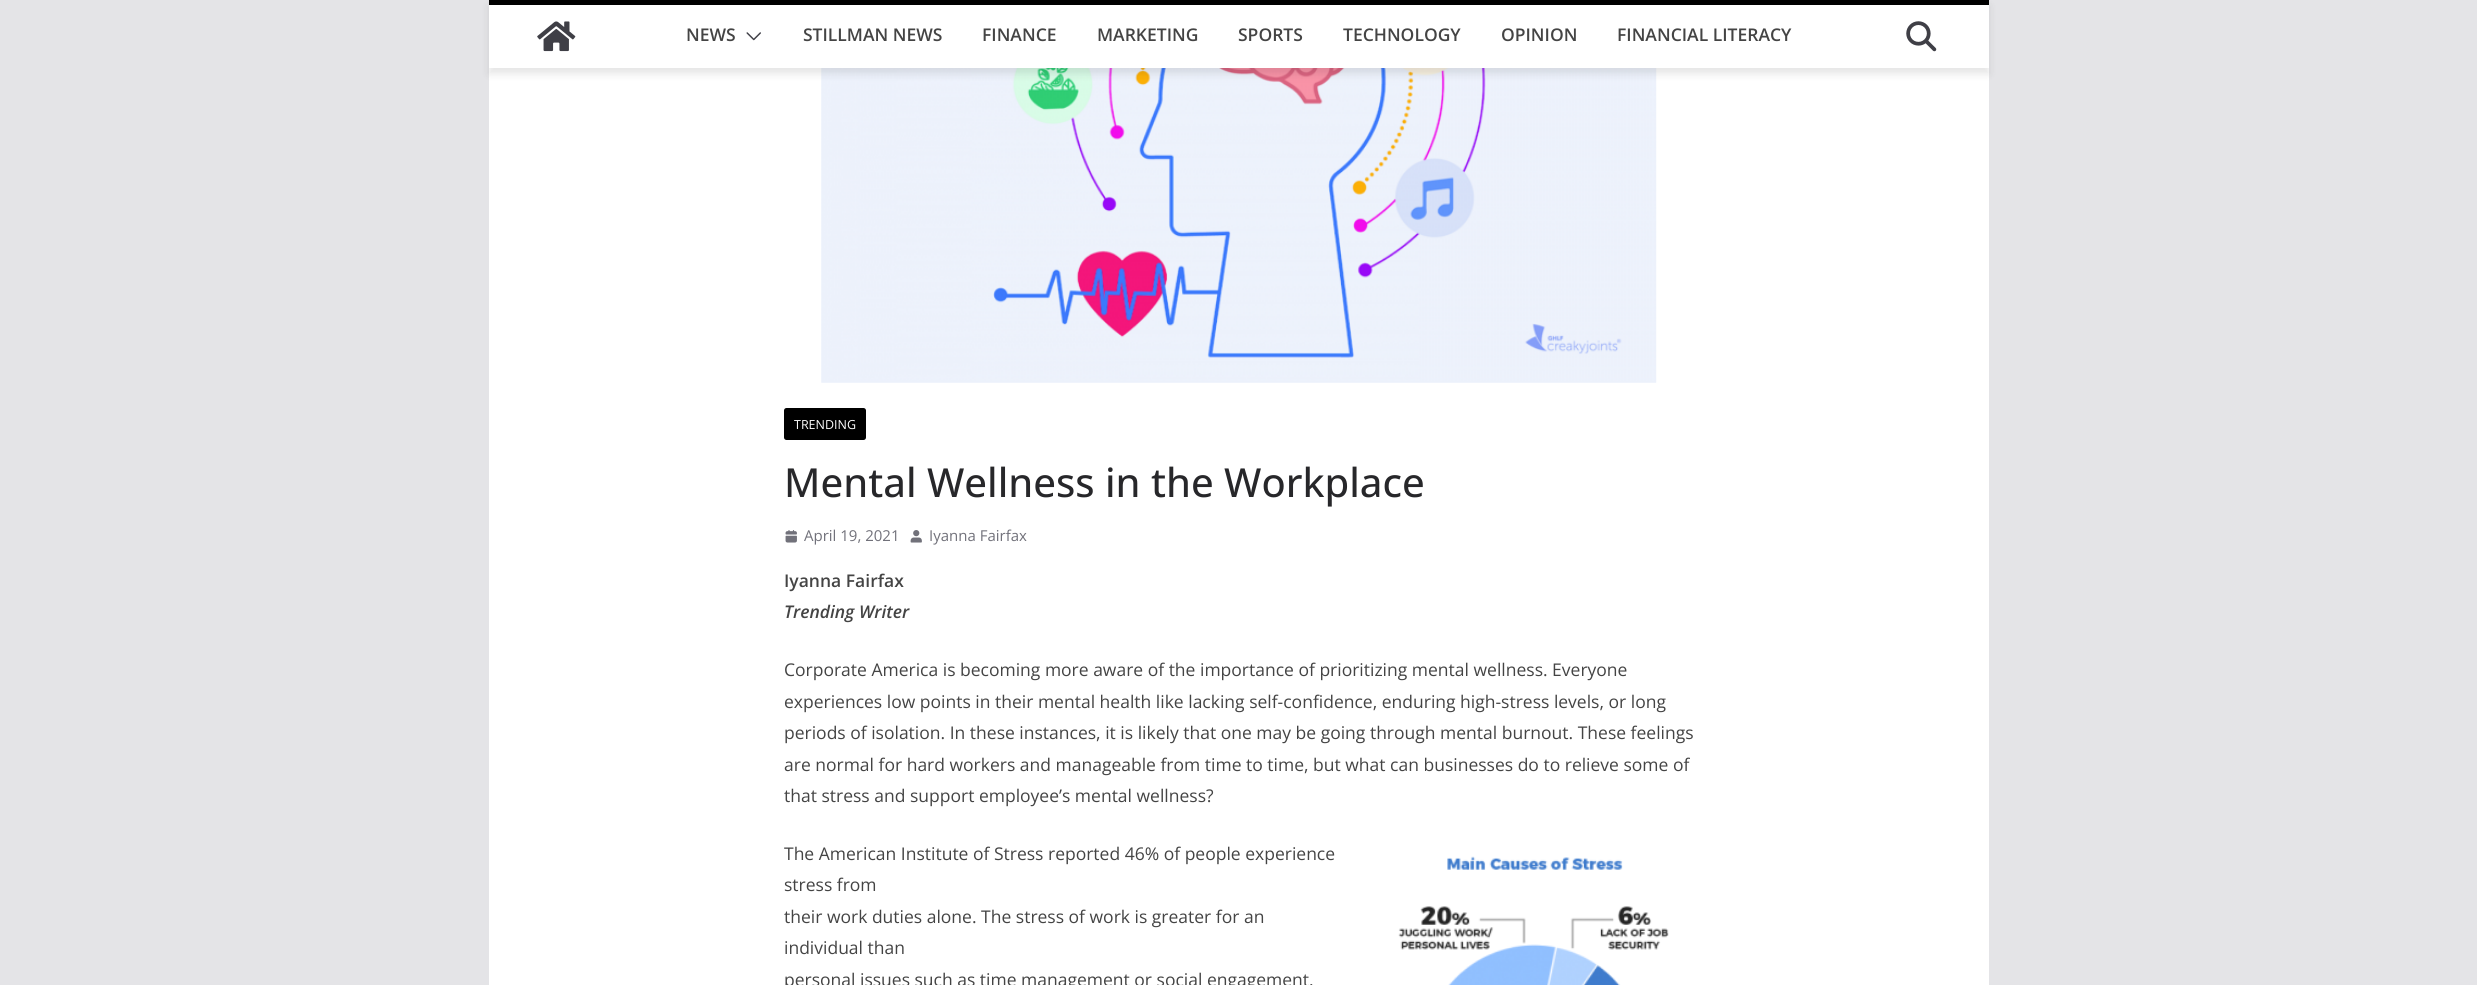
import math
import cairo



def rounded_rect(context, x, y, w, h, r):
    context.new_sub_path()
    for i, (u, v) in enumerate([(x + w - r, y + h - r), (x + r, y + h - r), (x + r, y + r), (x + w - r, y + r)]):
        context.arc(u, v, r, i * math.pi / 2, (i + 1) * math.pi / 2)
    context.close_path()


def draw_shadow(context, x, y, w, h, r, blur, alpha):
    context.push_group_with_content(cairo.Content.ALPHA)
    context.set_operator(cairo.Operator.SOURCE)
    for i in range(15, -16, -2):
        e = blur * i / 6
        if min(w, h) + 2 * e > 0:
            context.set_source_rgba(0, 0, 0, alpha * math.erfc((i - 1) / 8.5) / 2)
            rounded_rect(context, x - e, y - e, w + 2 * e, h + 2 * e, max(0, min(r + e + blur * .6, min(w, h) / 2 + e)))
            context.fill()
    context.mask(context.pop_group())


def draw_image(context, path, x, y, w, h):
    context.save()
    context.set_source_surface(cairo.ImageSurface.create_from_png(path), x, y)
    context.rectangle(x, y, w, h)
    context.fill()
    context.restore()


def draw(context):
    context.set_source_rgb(228 / 255, 228 / 255, 231 / 255)
    context.paint()
    context.set_source_rgb(1, 1, 1)
    context.rectangle(489, 68, 1500, 917)
    context.fill()
    draw_image(context, "images/4.png", 821, 68, 836, 315)
    context.set_source_rgb(0, 0, 0)
    draw_shadow(context, 489, 6, 1500, 68, 0, 4, 0.1)
    context.set_source_rgb(1, 1, 1)
    context.rectangle(489, 5, 1500, 63)
    context.fill()
    context.set_source_rgb(0, 0, 0)
    context.rectangle(489, 0, 1500, 5)
    context.fill()
    draw_image(context, "images/1.png", 537, 21, 39, 31)
    draw_image(context, "images/2.png", 746, 32, 15, 9)
    draw_image(context, "images/3.png", 1906, 21, 31, 31)
    rounded_rect(context, 784, 408, 82, 32, 2.5)
    context.fill()
    draw_image(context, "images/5.png", 785, 530, 12, 13)
    draw_image(context, "images/6.png", 910, 530, 12, 13)
    draw_image(context, "images/7.png", 1398, 856, 271, 129)
    context.select_font_face("Open Sans SemiBold")
    context.set_font_size(17.5)
    context.set_source_rgb(68 / 255, 68 / 255, 68 / 255)
    context.move_to(686, 41)
    context.show_text("NEWS")
    context.move_to(803, 41)
    context.show_text("STILLMAN NEWS")
    context.move_to(982, 41)
    context.show_text("FINANCE")
    context.move_to(1097, 41)
    context.show_text("MARKETING")
    context.move_to(1238, 41)
    context.show_text("SPORTS")
    context.move_to(1343, 41)
    context.show_text("TECHNOLOGY")
    context.move_to(1501, 41)
    context.show_text("OPINION")
    context.move_to(1617, 41)
    context.show_text("FINANCIAL LITERACY")
    context.select_font_face("Open Sans")
    context.set_font_size(12.5)
    context.set_source_rgb(1, 1, 1)
    context.move_to(794, 429)
    context.show_text("TRENDING")
    context.select_font_face("Open Sans Medium")
    context.set_font_size(40)
    context.set_source_rgb(39 / 255, 39 / 255, 42 / 255)
    context.move_to(784, 497)
    context.show_text("Mental Wellness in the Workplace")
    context.select_font_face("Open Sans")
    context.set_font_size(15)
    context.set_source_rgb(113 / 255, 113 / 255, 122 / 255)
    context.move_to(804, 541)
    context.show_text("April 19, 2021")
    context.move_to(929, 541)
    context.show_text("Iyanna Fairfax")
    context.select_font_face("Open Sans SemiBold")
    context.set_font_size(17.5)
    context.set_source_rgb(68 / 255, 68 / 255, 68 / 255)
    context.move_to(784, 587)
    context.show_text("Iyanna Fairfax")
    context.select_font_face("Open Sans SemiBold", cairo.FontSlant.ITALIC)
    context.move_to(784, 618)
    context.show_text("Trending Writer")
    context.select_font_face("Open Sans")
    context.move_to(784, 676)
    context.show_text("Corporate America is becoming more aware of the importance of prioritizing mental wellness. Everyone")
    context.move_to(784, 708)
    context.show_text("experiences low points in their mental health like lacking self-confidence, enduring high-stress levels, or long")
    context.move_to(784, 739)
    context.show_text("periods of isolation. In these instances, it is likely that one may be going through mental burnout. These feelings")
    context.move_to(784, 771)
    context.show_text("are normal for hard workers and manageable from time to time, but what can businesses do to relieve some of")
    context.move_to(784, 802)
    context.show_text("that stress and support employee’s mental wellness?")
    context.move_to(784, 860)
    context.show_text("The American Institute of Stress reported 46% of people experience")
    context.move_to(784, 891)
    context.show_text("stress from")
    context.move_to(784, 923)
    context.show_text("their work duties alone. The stress of work is greater for an")
    context.move_to(784, 954)
    context.show_text("individual than")
    context.move_to(784, 986)
    context.show_text("personal issues such as time management or social engagement.")


surface = cairo.ImageSurface(cairo.Format.RGB24, 2477, 985)
context = cairo.Context(surface)
options = cairo.FontOptions()
options.set_hint_metrics(cairo.HintMetrics.OFF)
options.set_hint_style(cairo.HintStyle.NONE)
context.set_font_options(options)
context.set_miter_limit(4)
draw(context)
surface.write_to_png("out.png")
